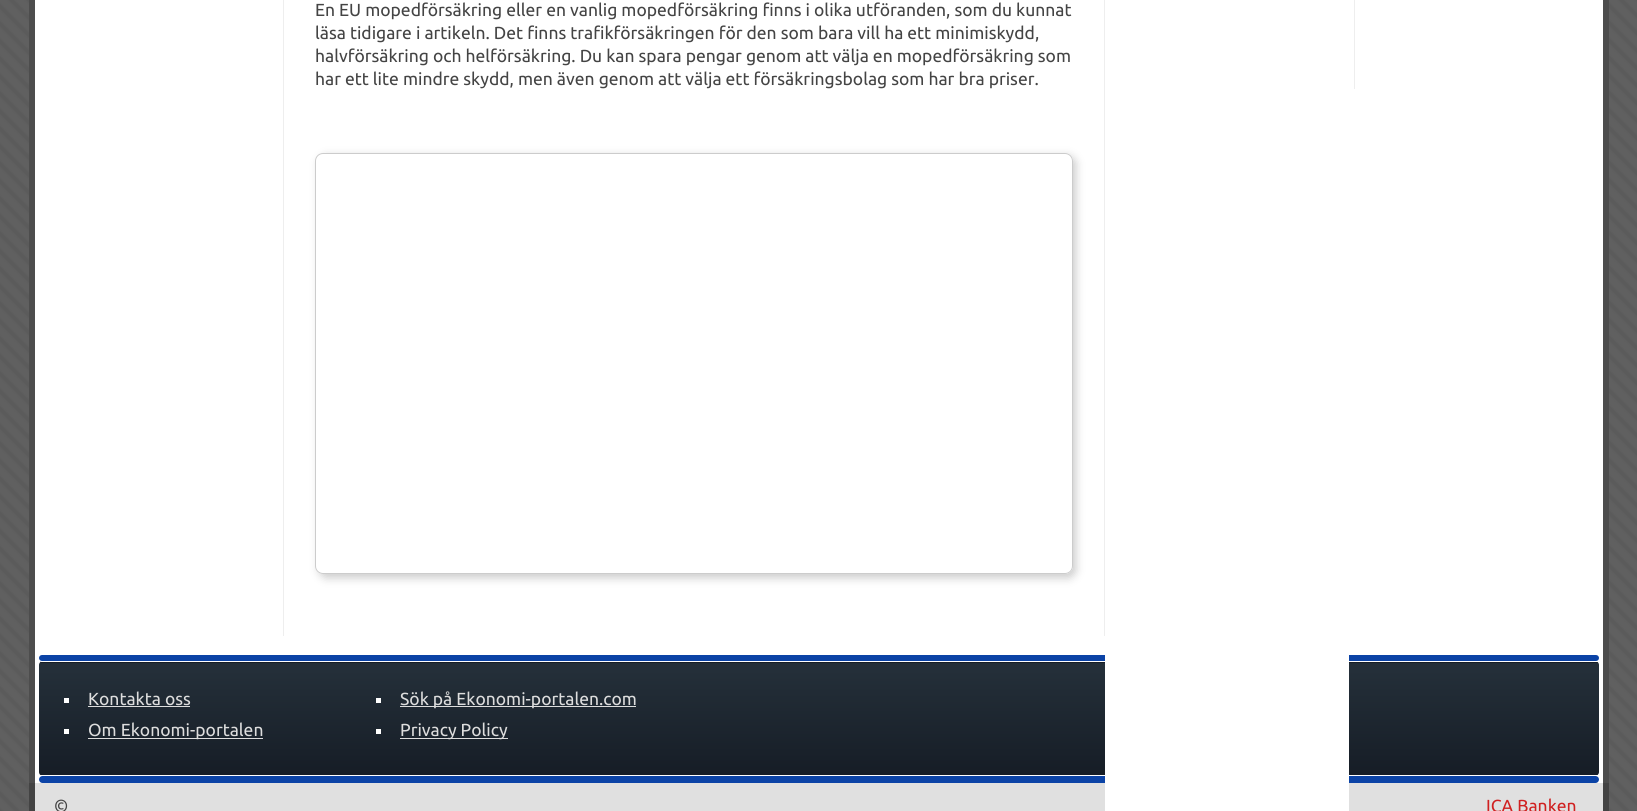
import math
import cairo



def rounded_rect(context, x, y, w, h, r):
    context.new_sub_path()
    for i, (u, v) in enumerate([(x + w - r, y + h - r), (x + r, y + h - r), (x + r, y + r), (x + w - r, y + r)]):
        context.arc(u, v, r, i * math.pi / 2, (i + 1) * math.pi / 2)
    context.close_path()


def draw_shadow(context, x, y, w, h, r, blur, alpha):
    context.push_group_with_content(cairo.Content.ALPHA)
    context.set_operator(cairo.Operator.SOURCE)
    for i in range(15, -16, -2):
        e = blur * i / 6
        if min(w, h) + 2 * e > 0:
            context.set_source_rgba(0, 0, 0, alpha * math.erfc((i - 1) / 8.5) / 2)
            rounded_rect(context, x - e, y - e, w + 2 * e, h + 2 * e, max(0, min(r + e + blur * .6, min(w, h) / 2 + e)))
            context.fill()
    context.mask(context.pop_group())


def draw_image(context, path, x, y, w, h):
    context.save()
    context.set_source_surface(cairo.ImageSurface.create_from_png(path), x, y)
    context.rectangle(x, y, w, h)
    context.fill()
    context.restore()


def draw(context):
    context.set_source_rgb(1, 1, 1)
    context.paint()
    draw_image(context, "images/1.png", 0, 0, 1637, 811)
    context.set_source_rgb(1, 1, 1)
    context.rectangle(35, 0, 1568, 783)
    context.fill()
    context.set_source_rgb(77 / 255, 77 / 255, 77 / 255)
    context.rectangle(1603, 0, 6, 783)
    context.fill()
    context.rectangle(29, 0, 6, 783)
    context.fill()
    context.set_source_rgb(238 / 255, 238 / 255, 238 / 255)
    context.rectangle(1104, 0, 1, 636)
    context.fill()
    context.rectangle(283, 0, 1, 636)
    context.fill()
    context.save()
    context.set_fill_rule(cairo.FillRule.EVEN_ODD)
    context.new_path()
    context.move_to(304, 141)
    context.line_to(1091, 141)
    context.line_to(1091, 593)
    context.line_to(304, 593)
    context.close_path()
    context.move_to(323, 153)
    context.line_to(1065, 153)
    context.curve_to(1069.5, 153, 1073, 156.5, 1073, 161)
    context.line_to(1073, 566)
    context.curve_to(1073, 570.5, 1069.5, 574, 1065, 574)
    context.line_to(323, 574)
    context.curve_to(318.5, 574, 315, 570.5, 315, 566)
    context.line_to(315, 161)
    context.curve_to(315, 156.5, 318.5, 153, 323, 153)
    context.close_path()
    context.clip()
    context.set_source_rgb(204 / 255, 204 / 255, 204 / 255)
    draw_shadow(context, 319, 156, 757, 422, 8, 4.5, 1)
    context.restore()
    rounded_rect(context, 315.5, 153.5, 757, 420, 7.5)
    context.set_source_rgb(204 / 255, 204 / 255, 204 / 255)
    context.set_line_width(1)
    context.stroke()
    context.set_source_rgb(238 / 255, 238 / 255, 238 / 255)
    context.rectangle(1354, 0, 1, 89)
    context.fill()
    context.set_source_rgb(11 / 255, 67 / 255, 166 / 255)
    rounded_rect(context, 39, 655, 1560, 6, 3)
    context.fill()
    context.save()
    rounded_rect(context, 39, 661, 1560, 115, 4)
    context.clip()
    gradient = cairo.LinearGradient(819, 550, 819, 663)
    gradient.add_color_stop_rgba(0.07, 36 / 255, 47 / 255, 57 / 255, 1)
    gradient.add_color_stop_rgba(1, 22 / 255, 29 / 255, 38 / 255, 1)
    context.set_source(gradient)
    context.rectangle(39, 661, 1560, 2)
    context.fill()
    gradient = cairo.LinearGradient(819, 662, 819, 775)
    gradient.add_color_stop_rgba(0.07, 36 / 255, 47 / 255, 57 / 255, 1)
    gradient.add_color_stop_rgba(1, 22 / 255, 29 / 255, 38 / 255, 1)
    context.set_source(gradient)
    context.rectangle(39, 663, 1560, 112)
    context.fill()
    context.restore()
    context.set_source_rgb(1, 1, 1)
    context.rectangle(41, 661, 1557, 1)
    context.fill()
    context.set_source_rgb(11 / 255, 67 / 255, 166 / 255)
    rounded_rect(context, 39, 776, 1560, 7, 3.5)
    context.fill()
    context.set_source_rgb(224 / 255, 224 / 255, 224 / 255)
    context.rectangle(35, 783, 1568, 28)
    context.fill()
    context.set_source_rgb(1, 1, 1)
    context.rectangle(1105, 655, 244, 156)
    context.fill()
    context.rectangle(64, 698, 5, 5)
    context.fill()
    context.set_source_rgb(221 / 255, 221 / 255, 221 / 255)
    context.rectangle(88, 706, 102, 1)
    context.fill()
    context.set_source_rgb(1, 1, 1)
    context.rectangle(64, 729, 5, 5)
    context.fill()
    context.set_source_rgb(221 / 255, 221 / 255, 221 / 255)
    context.rectangle(88, 738, 175, 1)
    context.fill()
    context.set_source_rgb(1, 1, 1)
    context.rectangle(376, 698, 5, 5)
    context.fill()
    context.set_source_rgb(221 / 255, 221 / 255, 221 / 255)
    context.rectangle(400, 706, 236, 1)
    context.fill()
    context.set_source_rgb(1, 1, 1)
    context.rectangle(376, 729, 5, 5)
    context.fill()
    context.set_source_rgb(221 / 255, 221 / 255, 221 / 255)
    context.rectangle(400, 738, 108, 1)
    context.fill()
    context.set_source_rgb(67 / 255, 67 / 255, 67 / 255)
    context.rectangle(1603, 783, 6, 28)
    context.fill()
    context.rectangle(29, 783, 6, 28)
    context.fill()
    context.select_font_face("Ubuntu")
    context.set_font_size(17.5)
    context.set_source_rgb(68 / 255, 68 / 255, 68 / 255)
    context.move_to(315, 16)
    context.show_text("En EU mopedförsäkring eller en vanlig mopedförsäkring finns i olika utföranden, som du kunnat")
    context.move_to(315, 39)
    context.show_text("läsa tidigare i artikeln. Det finns trafikförsäkringen för den som bara vill ha ett minimiskydd,")
    context.move_to(315, 62)
    context.show_text("halvförsäkring och helförsäkring. Du kan spara pengar genom att välja en mopedförsäkring som")
    context.move_to(315, 85)
    context.show_text("har ett lite mindre skydd, men även genom att välja ett försäkringsbolag som har bra priser.")
    context.set_source_rgb(221 / 255, 221 / 255, 221 / 255)
    context.move_to(88, 705)
    context.show_text("Kontakta oss")
    context.move_to(88, 736)
    context.show_text("Om Ekonomi-portalen")
    context.move_to(400, 705)
    context.show_text("Sök på Ekonomi-portalen.com")
    context.move_to(400, 736)
    context.show_text("Privacy Policy")
    context.set_source_rgb(68 / 255, 68 / 255, 68 / 255)
    context.move_to(54, 812)
    context.show_text("©")
    context.set_source_rgb(208 / 255, 33 / 255, 33 / 255)
    context.move_to(1486, 812)
    context.show_text("ICA Banken")


surface = cairo.ImageSurface(cairo.Format.RGB24, 1637, 811)
context = cairo.Context(surface)
options = cairo.FontOptions()
options.set_hint_metrics(cairo.HintMetrics.OFF)
options.set_hint_style(cairo.HintStyle.NONE)
context.set_font_options(options)
context.set_miter_limit(4)
draw(context)
surface.write_to_png("out.png")
